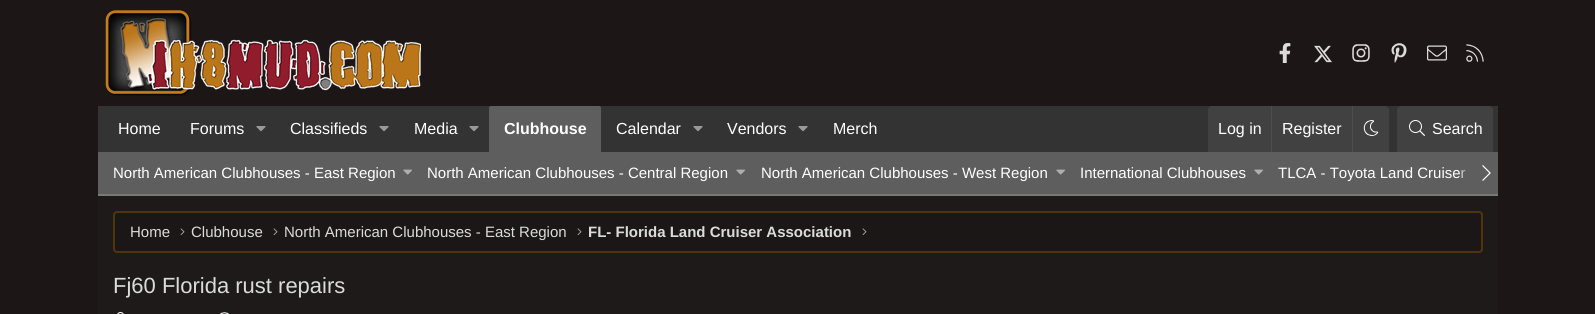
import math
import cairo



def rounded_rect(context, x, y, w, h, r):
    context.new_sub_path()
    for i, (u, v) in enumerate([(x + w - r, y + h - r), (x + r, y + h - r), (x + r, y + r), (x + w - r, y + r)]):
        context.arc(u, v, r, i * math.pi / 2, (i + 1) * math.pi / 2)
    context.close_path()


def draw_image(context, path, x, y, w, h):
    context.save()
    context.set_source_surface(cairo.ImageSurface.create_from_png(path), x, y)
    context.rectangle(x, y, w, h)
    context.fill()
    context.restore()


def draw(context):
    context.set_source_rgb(29 / 255, 22 / 255, 22 / 255)
    context.paint()
    draw_image(context, "images/1.png", 105, 10, 316, 86)
    draw_image(context, "images/2.png", 1279, 43, 12, 20)
    draw_image(context, "images/3.png", 1314, 45, 18, 18)
    draw_image(context, "images/4.png", 1352, 44, 18, 18)
    draw_image(context, "images/5.png", 1391, 43, 16, 20)
    draw_image(context, "images/6.png", 1427, 45, 20, 16)
    draw_image(context, "images/7.png", 1466, 44, 18, 18)
    context.set_source_rgb(51 / 255, 51 / 255, 51 / 255)
    context.rectangle(98, 106, 1400, 46)
    context.fill()
    draw_image(context, "images/8.png", 256, 126, 10, 6)
    draw_image(context, "images/8.png", 379, 126, 10, 6)
    draw_image(context, "images/8.png", 469, 126, 10, 6)
    context.set_source_rgb(94 / 255, 94 / 255, 94 / 255)
    context.new_path()
    context.move_to(491, 106)
    context.line_to(599, 106)
    context.curve_to(600, 106, 601, 107, 601, 108)
    context.line_to(601, 152)
    context.line_to(489, 152)
    context.line_to(489, 108)
    context.curve_to(489, 107, 490, 106, 491, 106)
    context.close_path()
    context.fill()
    draw_image(context, "images/8.png", 693, 126, 10, 6)
    draw_image(context, "images/8.png", 798, 126, 10, 6)
    context.set_source_rgb(65 / 255, 65 / 255, 65 / 255)
    context.new_path()
    context.move_to(1212, 106)
    context.line_to(1385, 106)
    context.curve_to(1387, 106, 1389, 108, 1389, 110)
    context.line_to(1389, 152)
    context.line_to(1208, 152)
    context.line_to(1208, 110)
    context.curve_to(1208, 108, 1210, 106, 1212, 106)
    context.close_path()
    context.fill()
    context.set_source_rgb(77 / 255, 77 / 255, 77 / 255)
    context.rectangle(1271, 106, 1, 46)
    context.fill()
    context.rectangle(1352, 106, 1, 46)
    context.fill()
    draw_image(context, "images/9.png", 1363, 120, 16, 16)
    context.set_source_rgb(65 / 255, 65 / 255, 65 / 255)
    context.new_path()
    context.move_to(1401, 106)
    context.line_to(1489, 106)
    context.curve_to(1491, 106, 1493, 108, 1493, 110)
    context.line_to(1493, 152)
    context.line_to(1397, 152)
    context.line_to(1397, 110)
    context.curve_to(1397, 108, 1399, 106, 1401, 106)
    context.close_path()
    context.fill()
    draw_image(context, "images/10.png", 1409, 120, 16, 16)
    context.set_source_rgb(94 / 255, 94 / 255, 94 / 255)
    context.rectangle(98, 152, 1400, 42)
    context.fill()
    context.set_source_rgb(120 / 255, 120 / 255, 120 / 255)
    context.rectangle(98, 194, 1400, 2)
    context.fill()
    draw_image(context, "images/11.png", 403, 169, 9, 6)
    draw_image(context, "images/11.png", 736, 169, 9, 6)
    draw_image(context, "images/11.png", 1056, 169, 9, 6)
    draw_image(context, "images/11.png", 1254, 169, 9, 6)
    draw_image(context, "images/12.png", 1482, 165, 9, 16)
    context.set_source_rgb(31 / 255, 26 / 255, 26 / 255)
    context.rectangle(98, 196, 1400, 118)
    context.fill()
    context.set_source_rgb(28 / 255, 23 / 255, 23 / 255)
    rounded_rect(context, 114, 212, 1368, 40, 3)
    context.fill_preserve()
    context.set_source_rgb(78 / 255, 53 / 255, 16 / 255)
    context.stroke()
    draw_image(context, "images/13.png", 180, 228, 5, 7)
    draw_image(context, "images/13.png", 273, 228, 5, 7)
    draw_image(context, "images/13.png", 577, 228, 5, 7)
    draw_image(context, "images/13.png", 862, 228, 5, 7)
    draw_image(context, "images/14.png", 117, 312, 7, 2)
    draw_image(context, "images/15.png", 220, 312, 9, 2)
    context.select_font_face("Liberation Sans")
    context.set_font_size(16)
    context.set_source_rgb(1, 1, 1)
    context.move_to(118, 134)
    context.show_text("Home")
    context.move_to(190, 134)
    context.show_text("Forums")
    context.move_to(290, 134)
    context.show_text("Classifieds")
    context.move_to(414, 134)
    context.show_text("Media")
    context.select_font_face("Liberation Sans", cairo.FontSlant.NORMAL, cairo.FontWeight.BOLD)
    context.move_to(504, 134)
    context.show_text("Clubhouse")
    context.select_font_face("Liberation Sans")
    context.move_to(616, 134)
    context.show_text("Calendar")
    context.move_to(727, 134)
    context.show_text("Vendors")
    context.move_to(833, 134)
    context.show_text("Merch")
    context.move_to(1218, 134)
    context.show_text("Log in")
    context.move_to(1282, 134)
    context.show_text("Register")
    context.move_to(1432, 134)
    context.show_text("Search")
    context.set_font_size(15)
    context.move_to(113, 178)
    context.show_text("North American Clubhouses - East Region")
    context.move_to(427, 178)
    context.show_text("North American Clubhouses - Central Region")
    context.move_to(761, 178)
    context.show_text("North American Clubhouses - West Region")
    context.move_to(1080, 178)
    context.show_text("International Clubhouses")
    context.move_to(1278, 178)
    context.show_text("TLCA - Toyota Land Cruiser")
    gradient = cairo.LinearGradient(1458, 173, 1498, 173)
    gradient.add_color_stop_rgba(0, 94 / 255, 94 / 255, 94 / 255, 0)
    gradient.add_color_stop_rgba(0.33, 94 / 255, 94 / 255, 94 / 255, 1)
    context.set_source(gradient)
    context.rectangle(1458, 170, 8, 8)
    context.fill()
    context.set_source_rgb(219 / 255, 219 / 255, 219 / 255)
    context.move_to(130, 237)
    context.show_text("Home")
    context.move_to(191, 237)
    context.show_text("Clubhouse")
    context.move_to(284, 237)
    context.show_text("North American Clubhouses - East Region")
    context.select_font_face("Liberation Sans", cairo.FontSlant.NORMAL, cairo.FontWeight.BOLD)
    context.move_to(588, 237)
    context.show_text("FL- Florida Land Cruiser Association")
    context.select_font_face("Liberation Sans")
    context.set_font_size(22)
    context.move_to(113, 293)
    context.show_text("Fj60 Florida rust repairs")


surface = cairo.ImageSurface(cairo.Format.RGB24, 1595, 314)
context = cairo.Context(surface)
options = cairo.FontOptions()
options.set_hint_metrics(cairo.HintMetrics.OFF)
options.set_hint_style(cairo.HintStyle.NONE)
context.set_font_options(options)
context.set_miter_limit(4)
draw(context)
surface.write_to_png("out.png")
